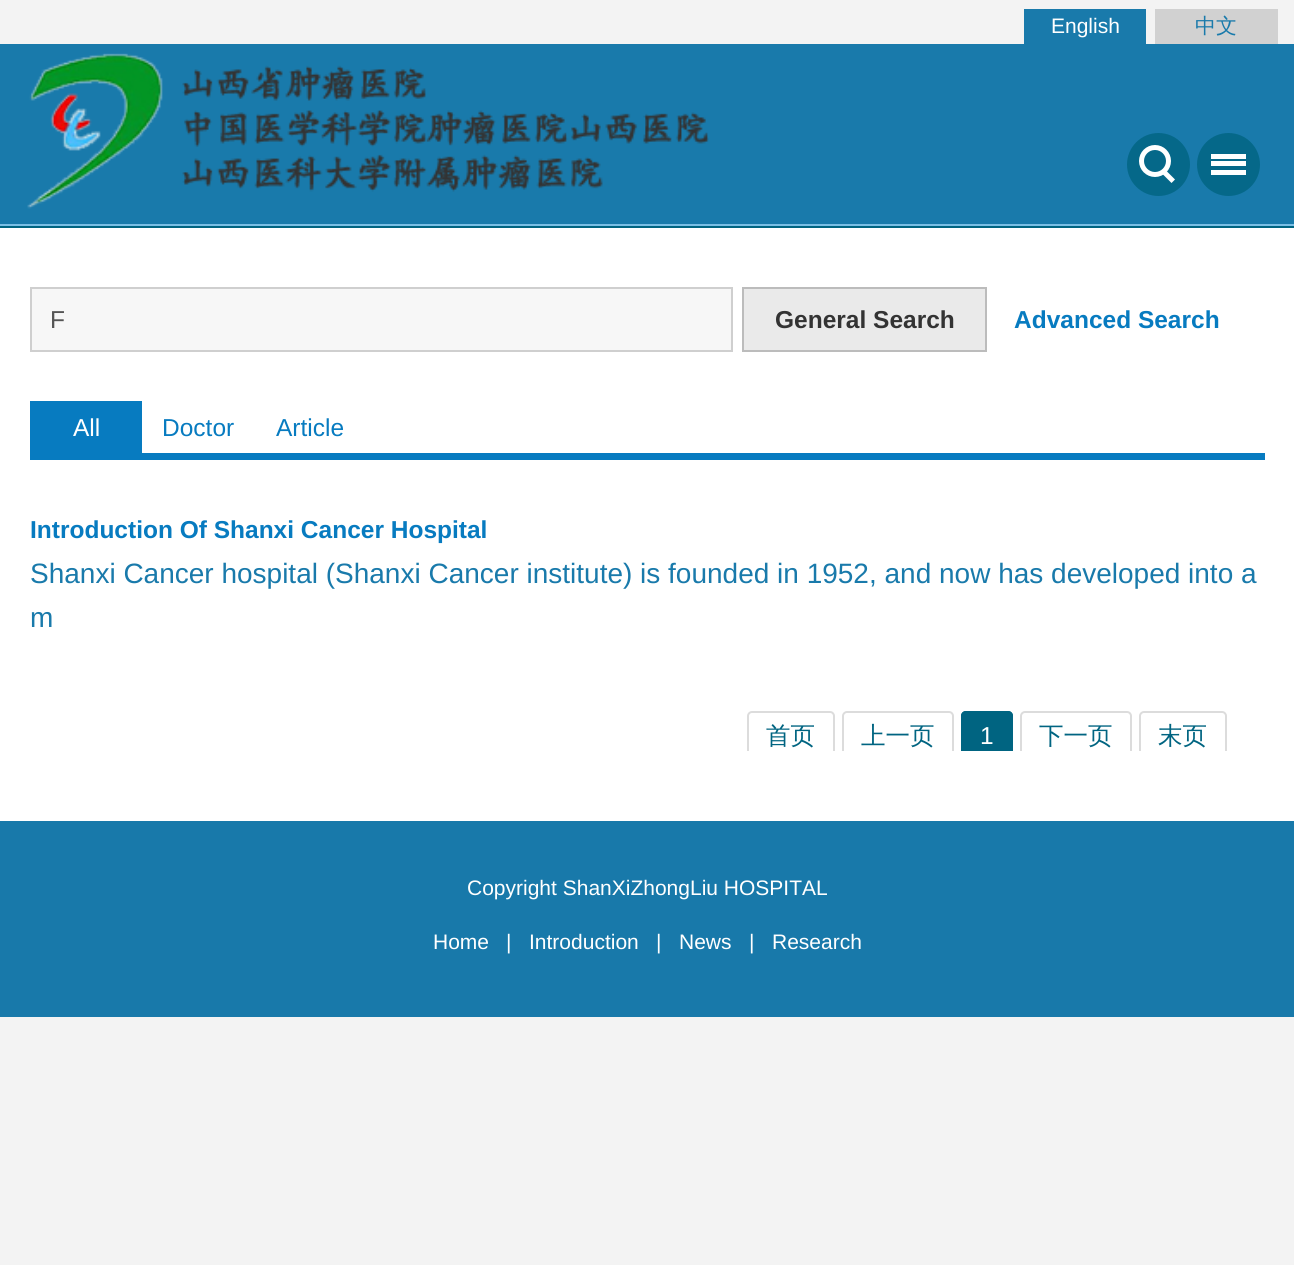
import math
import cairo



def rounded_rect(context, x, y, w, h, r):
    context.new_sub_path()
    for i, (u, v) in enumerate([(x + w - r, y + h - r), (x + r, y + h - r), (x + r, y + r), (x + w - r, y + r)]):
        context.arc(u, v, r, i * math.pi / 2, (i + 1) * math.pi / 2)
    context.close_path()


def draw_image(context, path, x, y, w, h):
    context.save()
    context.set_source_surface(cairo.ImageSurface.create_from_png(path), x, y)
    context.rectangle(x, y, w, h)
    context.fill()
    context.restore()


def draw(context):
    context.set_source_rgb(243 / 255, 243 / 255, 243 / 255)
    context.paint()
    context.set_source_rgb(25 / 255, 122 / 255, 171 / 255)
    context.rectangle(0, 44, 1294, 180)
    context.fill()
    context.rectangle(1024, 9, 122, 35)
    context.fill()
    context.set_source_rgb(209 / 255, 209 / 255, 209 / 255)
    context.rectangle(1155, 9, 123, 35)
    context.fill()
    draw_image(context, "images/1.png", 27, 53, 682, 156)
    context.set_source_rgb(122 / 255, 191 / 255, 229 / 255)
    context.rectangle(0, 224, 1294, 2)
    context.fill()
    context.set_source_rgb(5 / 255, 104 / 255, 137 / 255)
    context.arc(1158.5, 164.5, 31.5, 0, 2 * math.pi)
    context.fill()
    context.arc(1155, 161, 13.5, 0, 2 * math.pi)
    context.set_source_rgb(1, 1, 1)
    context.set_line_width(5)
    context.stroke()
    context.new_path()
    context.move_to(1165, 169.5)
    context.line_to(1175, 179.5)
    context.line_to(1171.5, 183)
    context.line_to(1161.5, 173)
    context.close_path()
    context.fill()
    context.set_source_rgb(5 / 255, 104 / 255, 137 / 255)
    context.arc(1228.5, 164.5, 31.5, 0, 2 * math.pi)
    context.fill()
    context.set_source_rgb(1, 1, 1)
    context.rectangle(1211, 161, 35, 5)
    context.fill()
    context.rectangle(1211, 154, 35, 5)
    context.fill()
    context.rectangle(1211, 170, 35, 5)
    context.fill()
    context.set_source_rgb(0, 100 / 255, 129 / 255)
    context.rectangle(0, 226, 1294, 2)
    context.fill()
    context.set_source_rgb(1, 1, 1)
    context.rectangle(0, 228, 1294, 593)
    context.fill()
    context.set_source_rgb(247 / 255, 247 / 255, 247 / 255)
    context.rectangle(31, 288, 701, 63)
    context.fill_preserve()
    context.set_source_rgb(207 / 255, 207 / 255, 207 / 255)
    context.set_line_width(2)
    context.stroke()
    context.set_source_rgb(234 / 255, 234 / 255, 234 / 255)
    context.rectangle(743, 288, 243, 63)
    context.fill_preserve()
    context.set_source_rgb(188 / 255, 188 / 255, 188 / 255)
    context.stroke()
    context.set_source_rgb(7 / 255, 123 / 255, 192 / 255)
    context.rectangle(30, 453, 1235, 7)
    context.fill()
    context.rectangle(30, 401, 112, 52)
    context.fill()
    context.save()
    context.rectangle(709, 691, 556, 60)
    context.clip()
    rounded_rect(context, 748, 712, 86, 47, 4)
    context.set_source_rgb(220 / 255, 220 / 255, 220 / 255)
    context.stroke()
    rounded_rect(context, 843, 712, 110, 47, 4)
    context.stroke()
    context.restore()
    context.set_source_rgb(0, 100 / 255, 129 / 255)
    context.new_path()
    context.move_to(966, 711)
    context.line_to(1008, 711)
    context.curve_to(1011, 711, 1013, 713, 1013, 716)
    context.line_to(1013, 751)
    context.line_to(961, 751)
    context.line_to(961, 716)
    context.curve_to(961, 713, 963, 711, 966, 711)
    context.close_path()
    context.fill()
    context.save()
    context.rectangle(709, 691, 556, 60)
    context.clip()
    rounded_rect(context, 962, 712, 50, 47, 4)
    context.stroke()
    rounded_rect(context, 1021, 712, 110, 47, 4)
    context.set_source_rgb(220 / 255, 220 / 255, 220 / 255)
    context.stroke()
    rounded_rect(context, 1140, 712, 86, 47, 4)
    context.stroke()
    context.restore()
    context.set_source_rgb(24 / 255, 121 / 255, 170 / 255)
    context.rectangle(0, 821, 1294, 196)
    context.fill()
    context.select_font_face("Liberation Sans")
    context.set_font_size(21)
    context.set_source_rgb(1, 1, 1)
    context.move_to(1051, 33)
    context.show_text("English")
    context.select_font_face("WenQuanYi Zen Hei Medium")
    context.set_source_rgb(25 / 255, 122 / 255, 171 / 255)
    context.move_to(1195, 33)
    context.show_text("中文")
    context.select_font_face("Liberation Sans")
    context.set_font_size(24.5)
    context.set_source_rgb(85 / 255, 85 / 255, 85 / 255)
    context.move_to(50, 328)
    context.show_text("F")
    context.select_font_face("Liberation Sans", cairo.FontSlant.NORMAL, cairo.FontWeight.BOLD)
    context.set_source_rgb(51 / 255, 51 / 255, 51 / 255)
    context.move_to(775, 328)
    context.show_text("General Search")
    context.set_source_rgb(7 / 255, 123 / 255, 192 / 255)
    context.move_to(1014, 328)
    context.show_text("Advanced Search")
    context.select_font_face("Liberation Sans")
    context.set_source_rgb(1, 1, 1)
    context.move_to(73, 436)
    context.show_text("All")
    context.set_source_rgb(7 / 255, 123 / 255, 192 / 255)
    context.move_to(162, 436)
    context.show_text("Doctor")
    context.move_to(276, 436)
    context.show_text("Article")
    context.select_font_face("Liberation Sans", cairo.FontSlant.NORMAL, cairo.FontWeight.BOLD)
    context.move_to(30, 538)
    context.show_text("Introduction Of Shanxi Cancer Hospital")
    context.select_font_face("Liberation Sans")
    context.set_font_size(28)
    context.set_source_rgb(25 / 255, 122 / 255, 171 / 255)
    context.move_to(30, 583)
    context.show_text("Shanxi Cancer hospital (Shanxi Cancer institute) is founded in 1952, and now has developed into a")
    context.move_to(30, 627)
    context.show_text("m")
    context.select_font_face("WenQuanYi Zen Hei Medium")
    context.set_font_size(24.5)
    context.set_source_rgb(0, 100 / 255, 129 / 255)
    context.move_to(766, 744)
    context.show_text("首页")
    context.move_to(861, 744)
    context.show_text("上一页")
    context.select_font_face("Liberation Sans")
    context.set_source_rgb(1, 1, 1)
    context.move_to(980, 744)
    context.show_text("1")
    context.select_font_face("WenQuanYi Zen Hei Medium")
    context.set_source_rgb(0, 100 / 255, 129 / 255)
    context.move_to(1039, 744)
    context.show_text("下一页")
    context.move_to(1158, 744)
    context.show_text("末页")
    context.select_font_face("Liberation Sans")
    context.set_font_size(21)
    context.set_source_rgb(1, 1, 1)
    context.move_to(467, 895)
    context.show_text("Copyright ShanXiZhongLiu HOSPITAL")
    context.move_to(433, 949)
    context.show_text("Home")
    context.move_to(506, 949)
    context.show_text("|")
    context.move_to(529, 949)
    context.show_text("Introduction")
    context.move_to(656, 949)
    context.show_text("|")
    context.move_to(679, 949)
    context.show_text("News")
    context.move_to(749, 949)
    context.show_text("|")
    context.move_to(772, 949)
    context.show_text("Research")


surface = cairo.ImageSurface(cairo.Format.RGB24, 1294, 1265)
context = cairo.Context(surface)
options = cairo.FontOptions()
options.set_hint_metrics(cairo.HintMetrics.OFF)
options.set_hint_style(cairo.HintStyle.NONE)
context.set_font_options(options)
context.set_miter_limit(4)
draw(context)
surface.write_to_png("out.png")
